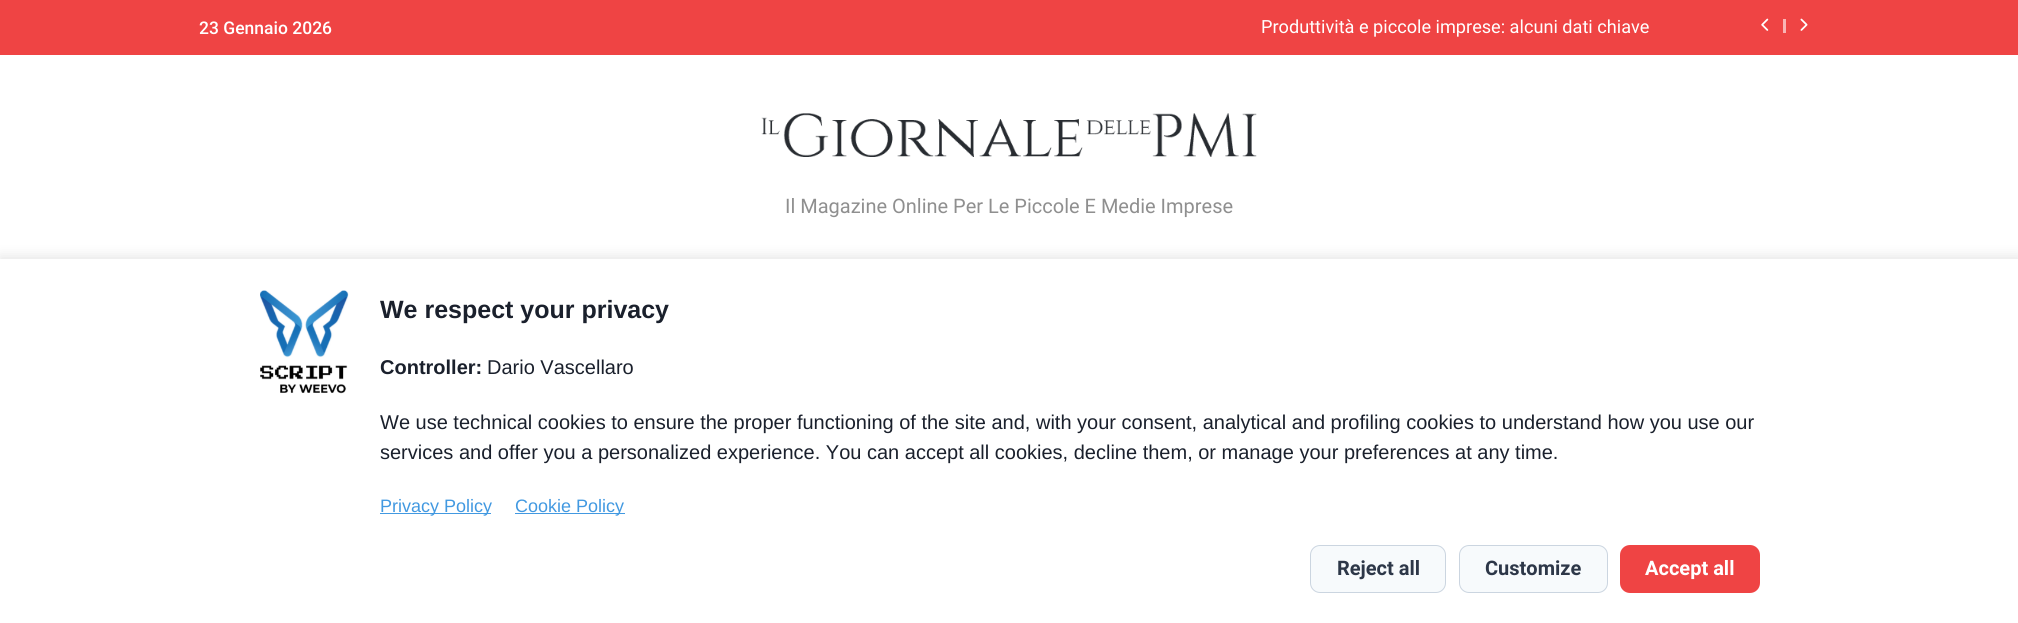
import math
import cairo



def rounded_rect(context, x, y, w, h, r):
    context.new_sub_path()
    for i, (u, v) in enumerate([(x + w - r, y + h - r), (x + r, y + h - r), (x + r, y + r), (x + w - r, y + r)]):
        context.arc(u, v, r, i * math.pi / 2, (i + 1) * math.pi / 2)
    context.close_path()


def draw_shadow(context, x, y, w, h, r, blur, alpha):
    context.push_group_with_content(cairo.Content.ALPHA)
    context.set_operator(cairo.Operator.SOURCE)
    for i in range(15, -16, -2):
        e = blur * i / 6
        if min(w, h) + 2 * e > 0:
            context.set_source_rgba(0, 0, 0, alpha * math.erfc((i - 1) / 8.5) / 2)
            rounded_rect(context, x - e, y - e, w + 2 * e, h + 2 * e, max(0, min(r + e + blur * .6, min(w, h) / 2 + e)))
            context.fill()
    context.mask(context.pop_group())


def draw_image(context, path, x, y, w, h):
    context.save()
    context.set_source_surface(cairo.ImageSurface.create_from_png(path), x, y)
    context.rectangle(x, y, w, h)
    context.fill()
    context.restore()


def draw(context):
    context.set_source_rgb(239 / 255, 68 / 255, 68 / 255)
    context.paint()
    draw_image(context, "images/1.png", 1761, 18, 8, 13)
    context.set_source_rgb(249 / 255, 180 / 255, 180 / 255)
    context.rectangle(1783, 19, 3, 14)
    context.fill()
    draw_image(context, "images/2.png", 1800, 18, 8, 13)
    context.set_source_rgb(1, 1, 1)
    context.rectangle(0, 55, 2018, 204)
    context.fill()
    draw_image(context, "images/3.png", 761, 113, 496, 44)
    context.set_source_rgb(0, 0, 0)
    draw_shadow(context, 0, 256, 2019, 365, 0, 6, 0.1)
    context.set_source_rgb(1, 1, 1)
    context.rectangle(0, 259, 2018, 364)
    context.fill()
    draw_image(context, "images/4.png", 260, 290, 89, 104)
    context.set_source_rgb(66 / 255, 153 / 255, 225 / 255)
    context.rectangle(380, 513, 111, 1)
    context.fill()
    context.rectangle(515, 513, 110, 1)
    context.fill()
    context.set_source_rgb(247 / 255, 250 / 255, 252 / 255)
    rounded_rect(context, 1310.5, 545.5, 135, 47, 9.5)
    context.fill_preserve()
    context.set_source_rgb(203 / 255, 213 / 255, 224 / 255)
    context.set_line_width(1)
    context.stroke()
    context.set_source_rgb(247 / 255, 250 / 255, 252 / 255)
    rounded_rect(context, 1459.5, 545.5, 148, 47, 9.5)
    context.fill_preserve()
    context.set_source_rgb(203 / 255, 213 / 255, 224 / 255)
    context.stroke()
    context.set_source_rgb(239 / 255, 68 / 255, 68 / 255)
    rounded_rect(context, 1620, 545, 140, 48, 10)
    context.fill()
    context.select_font_face("Roboto Medium")
    context.set_font_size(17.5)
    context.set_source_rgb(1, 1, 1)
    context.move_to(199, 34)
    context.show_text("23 Gennaio 2026")
    context.select_font_face("Roboto")
    context.set_font_size(18.15)
    context.move_to(1261, 33)
    context.show_text("Produttività e piccole imprese: alcuni dati chiave")
    context.set_font_size(20)
    context.set_source_rgb(143 / 255, 143 / 255, 143 / 255)
    context.move_to(785, 213)
    context.show_text("Il Magazine Online Per Le Piccole E Medie Imprese")
    context.select_font_face("Liberation Sans", cairo.FontSlant.NORMAL, cairo.FontWeight.BOLD)
    context.set_font_size(25)
    context.set_source_rgb(26 / 255, 32 / 255, 44 / 255)
    context.move_to(380, 318)
    context.show_text("We respect your privacy")
    context.set_font_size(20)
    context.move_to(380, 374)
    context.show_text("Controller:")
    context.select_font_face("Liberation Sans")
    context.move_to(487, 374)
    context.show_text("Dario Vascellaro")
    context.move_to(380, 429)
    context.show_text("We use technical cookies to ensure the proper functioning of the site and, with your consent, analytical and profiling cookies to understand how you use our")
    context.move_to(380, 459)
    context.show_text("services and offer you a personalized experience. You can accept all cookies, decline them, or manage your preferences at any time.")
    context.set_font_size(18)
    context.set_source_rgb(66 / 255, 153 / 255, 225 / 255)
    context.move_to(380, 512)
    context.show_text("Privacy Policy")
    context.move_to(515, 512)
    context.show_text("Cookie Policy")
    context.select_font_face("Roboto", cairo.FontSlant.NORMAL, cairo.FontWeight.BOLD)
    context.set_font_size(20)
    context.set_source_rgb(45 / 255, 55 / 255, 72 / 255)
    context.move_to(1337, 575)
    context.show_text("Reject all")
    context.move_to(1485, 575)
    context.show_text("Customize")
    context.set_source_rgb(1, 1, 1)
    context.move_to(1645, 575)
    context.show_text("Accept all")


surface = cairo.ImageSurface(cairo.Format.RGB24, 2018, 623)
context = cairo.Context(surface)
options = cairo.FontOptions()
options.set_hint_metrics(cairo.HintMetrics.OFF)
options.set_hint_style(cairo.HintStyle.NONE)
context.set_font_options(options)
context.set_miter_limit(4)
draw(context)
surface.write_to_png("out.png")
